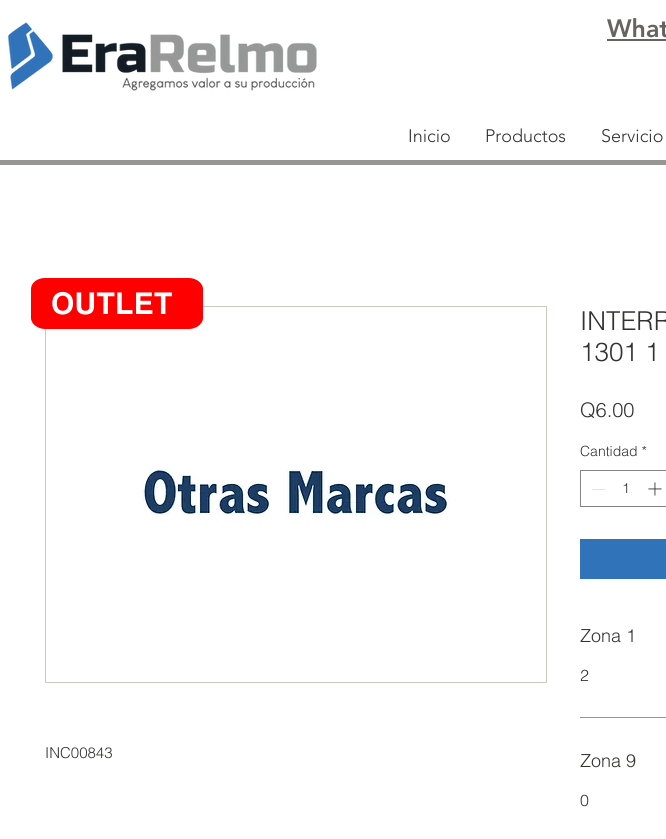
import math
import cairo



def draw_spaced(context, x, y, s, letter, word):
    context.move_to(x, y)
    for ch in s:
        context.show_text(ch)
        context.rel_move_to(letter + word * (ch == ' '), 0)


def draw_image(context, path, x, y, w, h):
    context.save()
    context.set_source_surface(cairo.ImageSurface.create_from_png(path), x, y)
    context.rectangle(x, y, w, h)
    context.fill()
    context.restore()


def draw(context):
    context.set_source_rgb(1, 1, 1)
    context.paint()
    draw_image(context, "images/1.png", 7, 22, 310, 69)
    context.set_source_rgb(102 / 255, 100 / 255, 96 / 255)
    context.rectangle(607, 39, 59, 2)
    context.fill()
    context.set_source_rgb(152 / 255, 150 / 255, 144 / 255)
    context.rectangle(0, 160, 666, 5)
    context.fill()
    context.rectangle(45.5, 306.5, 501, 376)
    context.set_source_rgb(203 / 255, 200 / 255, 192 / 255)
    context.set_line_width(1)
    context.stroke()
    context.set_source_rgb(1, 0, 0)
    context.new_path()
    context.move_to(189, 329)
    context.line_to(45, 329)
    context.curve_to(38, 329, 31, 324, 31, 318)
    context.line_to(31, 289)
    context.curve_to(31, 283, 37, 278, 45, 278)
    context.line_to(189, 278)
    context.curve_to(196, 278, 203, 283, 203, 289)
    context.line_to(203, 318)
    context.curve_to(203, 324, 196, 329, 189, 329)
    context.close_path()
    context.fill()
    draw_image(context, "images/2.png", 142, 467, 308, 49)
    context.rectangle(580.5, 470.5, 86, 36)
    context.set_source_rgb(133 / 255, 132 / 255, 131 / 255)
    context.stroke()
    context.set_source_rgb(227 / 255, 227 / 255, 227 / 255)
    context.rectangle(592, 489, 13, 1)
    context.fill()
    draw_image(context, "images/3.png", 648, 482, 14, 14)
    context.set_source_rgb(49 / 255, 115 / 255, 185 / 255)
    context.rectangle(580, 539, 86, 40)
    context.fill()
    context.set_source_rgb(152 / 255, 150 / 255, 144 / 255)
    context.rectangle(580, 717, 86, 1)
    context.fill()
    context.select_font_face("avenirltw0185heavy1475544 Black")
    context.set_font_size(25)
    context.set_source_rgb(102 / 255, 100 / 255, 96 / 255)
    context.move_to(607, 37)
    context.show_text("What")
    context.select_font_face("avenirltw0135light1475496 Light")
    context.set_font_size(18)
    context.set_source_rgb(51 / 255, 50 / 255, 48 / 255)
    context.move_to(408, 142)
    context.show_text("Inicio")
    context.move_to(485, 142)
    context.show_text("Productos")
    context.move_to(601, 142)
    context.show_text("Servicio")
    context.select_font_face("helvetica", cairo.FontSlant.NORMAL, cairo.FontWeight.BOLD)
    context.set_font_size(30)
    context.set_source_rgb(1, 1, 1)
    draw_spaced(context, 51, 314, "OUTLET", 0.25, 0)
    context.select_font_face("helvetica Light")
    context.set_font_size(15)
    context.set_source_rgb(51 / 255, 50 / 255, 48 / 255)
    context.move_to(45, 758)
    context.show_text("INC00843")
    context.set_font_size(26)
    context.move_to(580, 330)
    context.show_text("INTERR")
    context.move_to(580, 361)
    context.show_text("1301 1")
    context.set_font_size(20)
    context.move_to(580, 417)
    context.show_text("Q6.00")
    context.set_font_size(14)
    context.move_to(580, 456)
    context.show_text("Cantidad *")
    context.move_to(622, 493)
    context.show_text("1")
    context.set_font_size(18)
    context.move_to(580, 642)
    context.show_text("Zona 1")
    context.set_font_size(16)
    context.move_to(580, 681)
    context.show_text("2")
    context.set_font_size(18)
    context.move_to(580, 767)
    context.show_text("Zona 9")
    context.set_font_size(16)
    context.move_to(580, 806)
    context.show_text("0")


surface = cairo.ImageSurface(cairo.Format.RGB24, 666, 839)
context = cairo.Context(surface)
options = cairo.FontOptions()
options.set_hint_metrics(cairo.HintMetrics.OFF)
options.set_hint_style(cairo.HintStyle.NONE)
context.set_font_options(options)
context.set_miter_limit(4)
draw(context)
surface.write_to_png("out.png")
